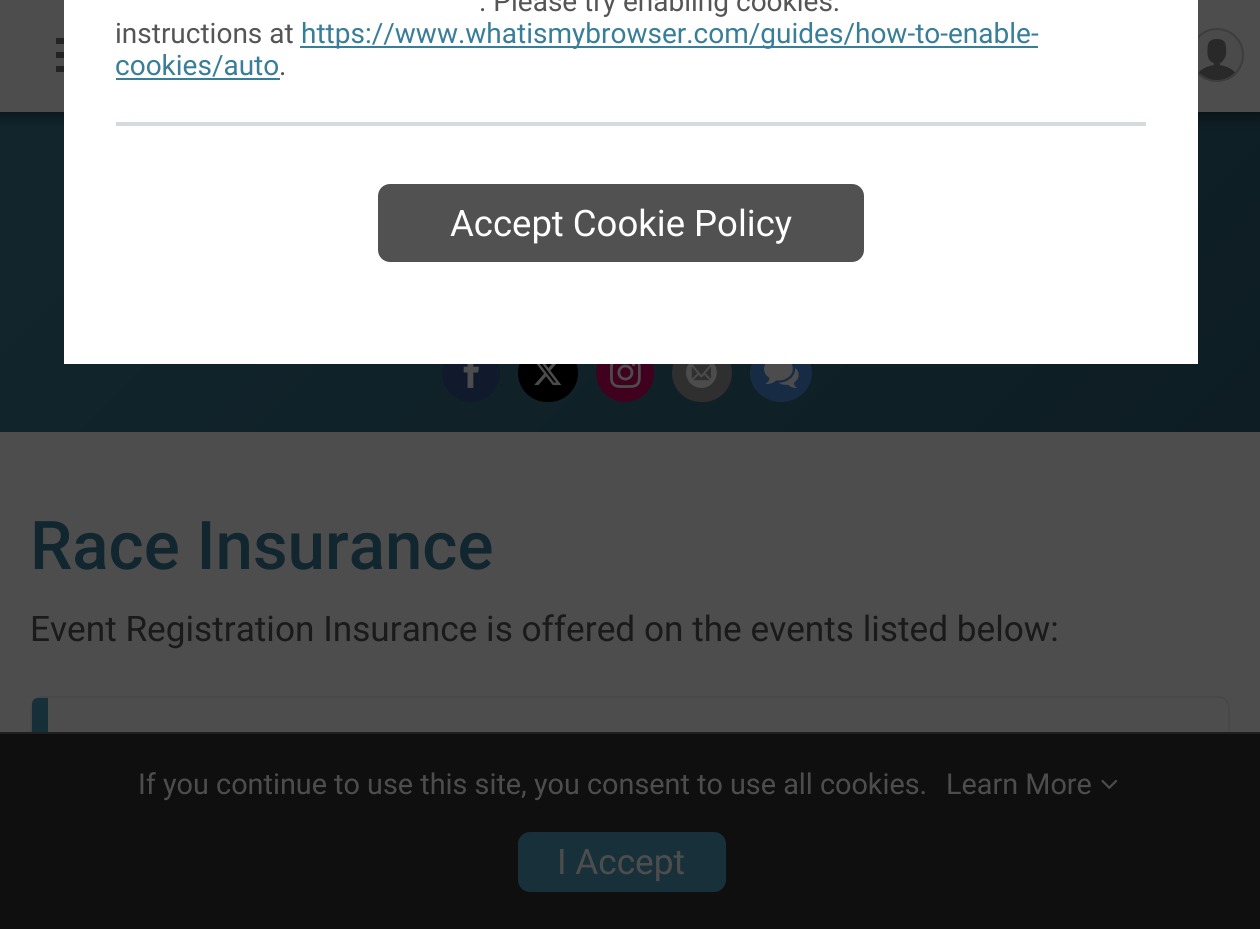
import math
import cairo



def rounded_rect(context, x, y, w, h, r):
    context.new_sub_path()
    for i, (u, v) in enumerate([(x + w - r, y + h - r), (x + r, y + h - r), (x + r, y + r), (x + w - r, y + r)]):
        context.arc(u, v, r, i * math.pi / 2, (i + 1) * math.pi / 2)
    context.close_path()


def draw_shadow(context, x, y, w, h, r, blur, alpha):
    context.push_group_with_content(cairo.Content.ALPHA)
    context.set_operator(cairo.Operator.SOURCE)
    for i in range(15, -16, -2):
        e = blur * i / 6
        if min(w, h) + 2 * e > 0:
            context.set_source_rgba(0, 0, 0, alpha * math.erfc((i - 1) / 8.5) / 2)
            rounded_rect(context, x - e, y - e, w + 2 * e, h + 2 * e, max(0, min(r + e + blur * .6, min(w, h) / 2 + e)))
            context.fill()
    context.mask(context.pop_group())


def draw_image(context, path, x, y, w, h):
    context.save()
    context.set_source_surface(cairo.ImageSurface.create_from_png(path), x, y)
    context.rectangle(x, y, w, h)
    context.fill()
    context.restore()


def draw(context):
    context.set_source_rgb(77 / 255, 77 / 255, 77 / 255)
    context.paint()
    gradient = cairo.LinearGradient(1064, 629, 196, -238)
    gradient.add_color_stop_rgba(0, 13 / 255, 29 / 255, 35 / 255, 1)
    gradient.add_color_stop_rgba(1, 19 / 255, 38 / 255, 46 / 255, 1)
    context.set_source(gradient)
    context.rectangle(0, 112, 1260, 320)
    context.fill()
    context.set_source_rgb(0, 0, 0)
    draw_shadow(context, -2, -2, 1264, 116, 0, 8, 0.6)
    context.set_source_rgb(77 / 255, 77 / 255, 77 / 255)
    context.rectangle(0, 0, 1260, 112)
    context.fill()
    context.set_source_rgb(35 / 255, 35 / 255, 35 / 255)
    context.new_path()
    context.move_to(100, 38)
    context.line_to(100, 44)
    context.line_to(56, 44)
    context.line_to(56, 38)
    context.close_path()
    context.move_to(100, 52)
    context.line_to(100, 58)
    context.line_to(56, 58)
    context.line_to(56, 52)
    context.close_path()
    context.move_to(100, 66)
    context.line_to(100, 72)
    context.line_to(56, 72)
    context.line_to(56, 66)
    context.close_path()
    context.fill()
    draw_image(context, "images/1.png", 1198, 30, 44, 50)
    context.arc(1217, 55, 26, 0, 2 * math.pi)
    context.set_source_rgb(61 / 255, 61 / 255, 61 / 255)
    context.stroke()
    context.set_source_rgb(17 / 255, 25 / 255, 45 / 255)
    context.arc(471, 373, 29, 0, 2 * math.pi)
    context.fill()
    context.set_source_rgb(0, 0, 0)
    rounded_rect(context, 518, 344, 60, 58, 29)
    context.fill()
    context.set_source_rgb(64 / 255, 1 / 255, 31 / 255)
    context.arc(625, 373, 29, 0, 2 * math.pi)
    context.fill()
    context.set_source_rgb(47 / 255, 47 / 255, 47 / 255)
    rounded_rect(context, 672, 344, 60, 58, 29)
    context.fill()
    context.set_source_rgb(23 / 255, 44 / 255, 68 / 255)
    context.new_path()
    context.move_to(781, 344)
    context.curve_to(798, 344, 812, 357, 812, 373)
    context.curve_to(812, 389, 798, 402, 781, 402)
    context.curve_to(764, 402, 750, 389, 750, 373)
    context.curve_to(750, 357, 764, 344, 781, 344)
    context.close_path()
    context.fill()
    context.rectangle(65, -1, 1132, 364)
    context.set_source_rgb(1, 1, 1)
    context.stroke()
    context.rectangle(66, 0, 1130, 362)
    context.fill()
    context.set_source_rgb(56 / 255, 126 / 255, 153 / 255)
    context.rectangle(300, 46, 738, 2)
    context.fill()
    context.rectangle(116, 78, 164, 2)
    context.fill()
    context.set_source_rgb(211 / 255, 219 / 255, 223 / 255)
    context.rectangle(116, 122, 1030, 4)
    context.fill()
    context.set_source_rgb(81 / 255, 81 / 255, 81 / 255)
    rounded_rect(context, 378, 184, 486, 78, 12)
    context.fill()
    draw_image(context, "images/2.png", 463, 364, 17, 24)
    draw_image(context, "images/3.png", 534, 364, 28, 22)
    draw_image(context, "images/4.png", 610, 364, 31, 24)
    draw_image(context, "images/5.png", 686, 364, 31, 24)
    draw_image(context, "images/6.png", 764, 364, 35, 24)
    rounded_rect(context, 31, 697, 1198, 186, 11)
    context.set_source_rgb(72 / 255, 72 / 255, 72 / 255)
    context.stroke()
    gradient = cairo.LinearGradient(40, 882, 40, 698)
    gradient.add_color_stop_rgba(0, 16 / 255, 37 / 255, 44 / 255, 1)
    gradient.add_color_stop_rgba(1, 23 / 255, 48 / 255, 57 / 255, 1)
    context.set_source(gradient)
    context.new_path()
    context.move_to(38, 698)
    context.line_to(48, 698)
    context.line_to(48, 882)
    context.line_to(38, 882)
    context.curve_to(34.5, 882, 32, 879.5, 32, 876)
    context.line_to(32, 704)
    context.curve_to(32, 700.5, 34.5, 698, 38, 698)
    context.close_path()
    context.fill()
    context.set_source_rgb(15 / 255, 15 / 255, 15 / 255)
    context.rectangle(0, 734, 1260, 195)
    context.fill()
    context.set_source_rgb(31 / 255, 31 / 255, 31 / 255)
    context.rectangle(0, 732, 1260, 2)
    context.fill()
    draw_image(context, "images/7.png", 1101, 779, 17, 11)
    context.set_source_rgb(23 / 255, 48 / 255, 57 / 255)
    rounded_rect(context, 518, 832, 208, 60, 12)
    context.fill()
    context.select_font_face("Roboto")
    context.set_font_size(28)
    context.set_source_rgb(85 / 255, 85 / 255, 85 / 255)
    context.move_to(479, 11)
    context.show_text(". Please try enabling cookies.")
    context.move_to(115, 43)
    context.show_text("instructions at")
    context.set_source_rgb(56 / 255, 126 / 255, 153 / 255)
    context.move_to(301, 43)
    context.show_text("https://www.whatismybrowser.com/guides/how-to-enable-")
    context.move_to(115, 75)
    context.show_text("cookies/auto")
    context.set_source_rgb(85 / 255, 85 / 255, 85 / 255)
    context.move_to(279, 75)
    context.show_text(".")
    context.set_font_size(36.5)
    context.set_source_rgb(1, 1, 1)
    context.move_to(450, 236)
    context.show_text("Accept Cookie Policy")
    context.select_font_face("Roboto Medium")
    context.set_font_size(67.25)
    context.set_source_rgb(17 / 255, 38 / 255, 46 / 255)
    context.move_to(30, 569)
    context.show_text("Race Insurance")
    context.select_font_face("Roboto")
    context.set_font_size(35.2)
    context.set_source_rgb(26 / 255, 26 / 255, 26 / 255)
    context.move_to(30, 641)
    context.show_text("Event Registration Insurance is offered on the events listed below:")
    context.set_font_size(28.8)
    context.set_source_rgb(77 / 255, 77 / 255, 77 / 255)
    context.move_to(138, 794)
    context.show_text("If you continue to use this site, you consent to use all cookies.")
    context.move_to(946, 794)
    context.show_text("Learn More")
    context.set_font_size(35.2)
    context.move_to(557, 874)
    context.show_text("I Accept")


surface = cairo.ImageSurface(cairo.Format.RGB24, 1260, 929)
context = cairo.Context(surface)
options = cairo.FontOptions()
options.set_hint_metrics(cairo.HintMetrics.OFF)
options.set_hint_style(cairo.HintStyle.NONE)
context.set_font_options(options)
context.set_miter_limit(4)
draw(context)
surface.write_to_png("out.png")
